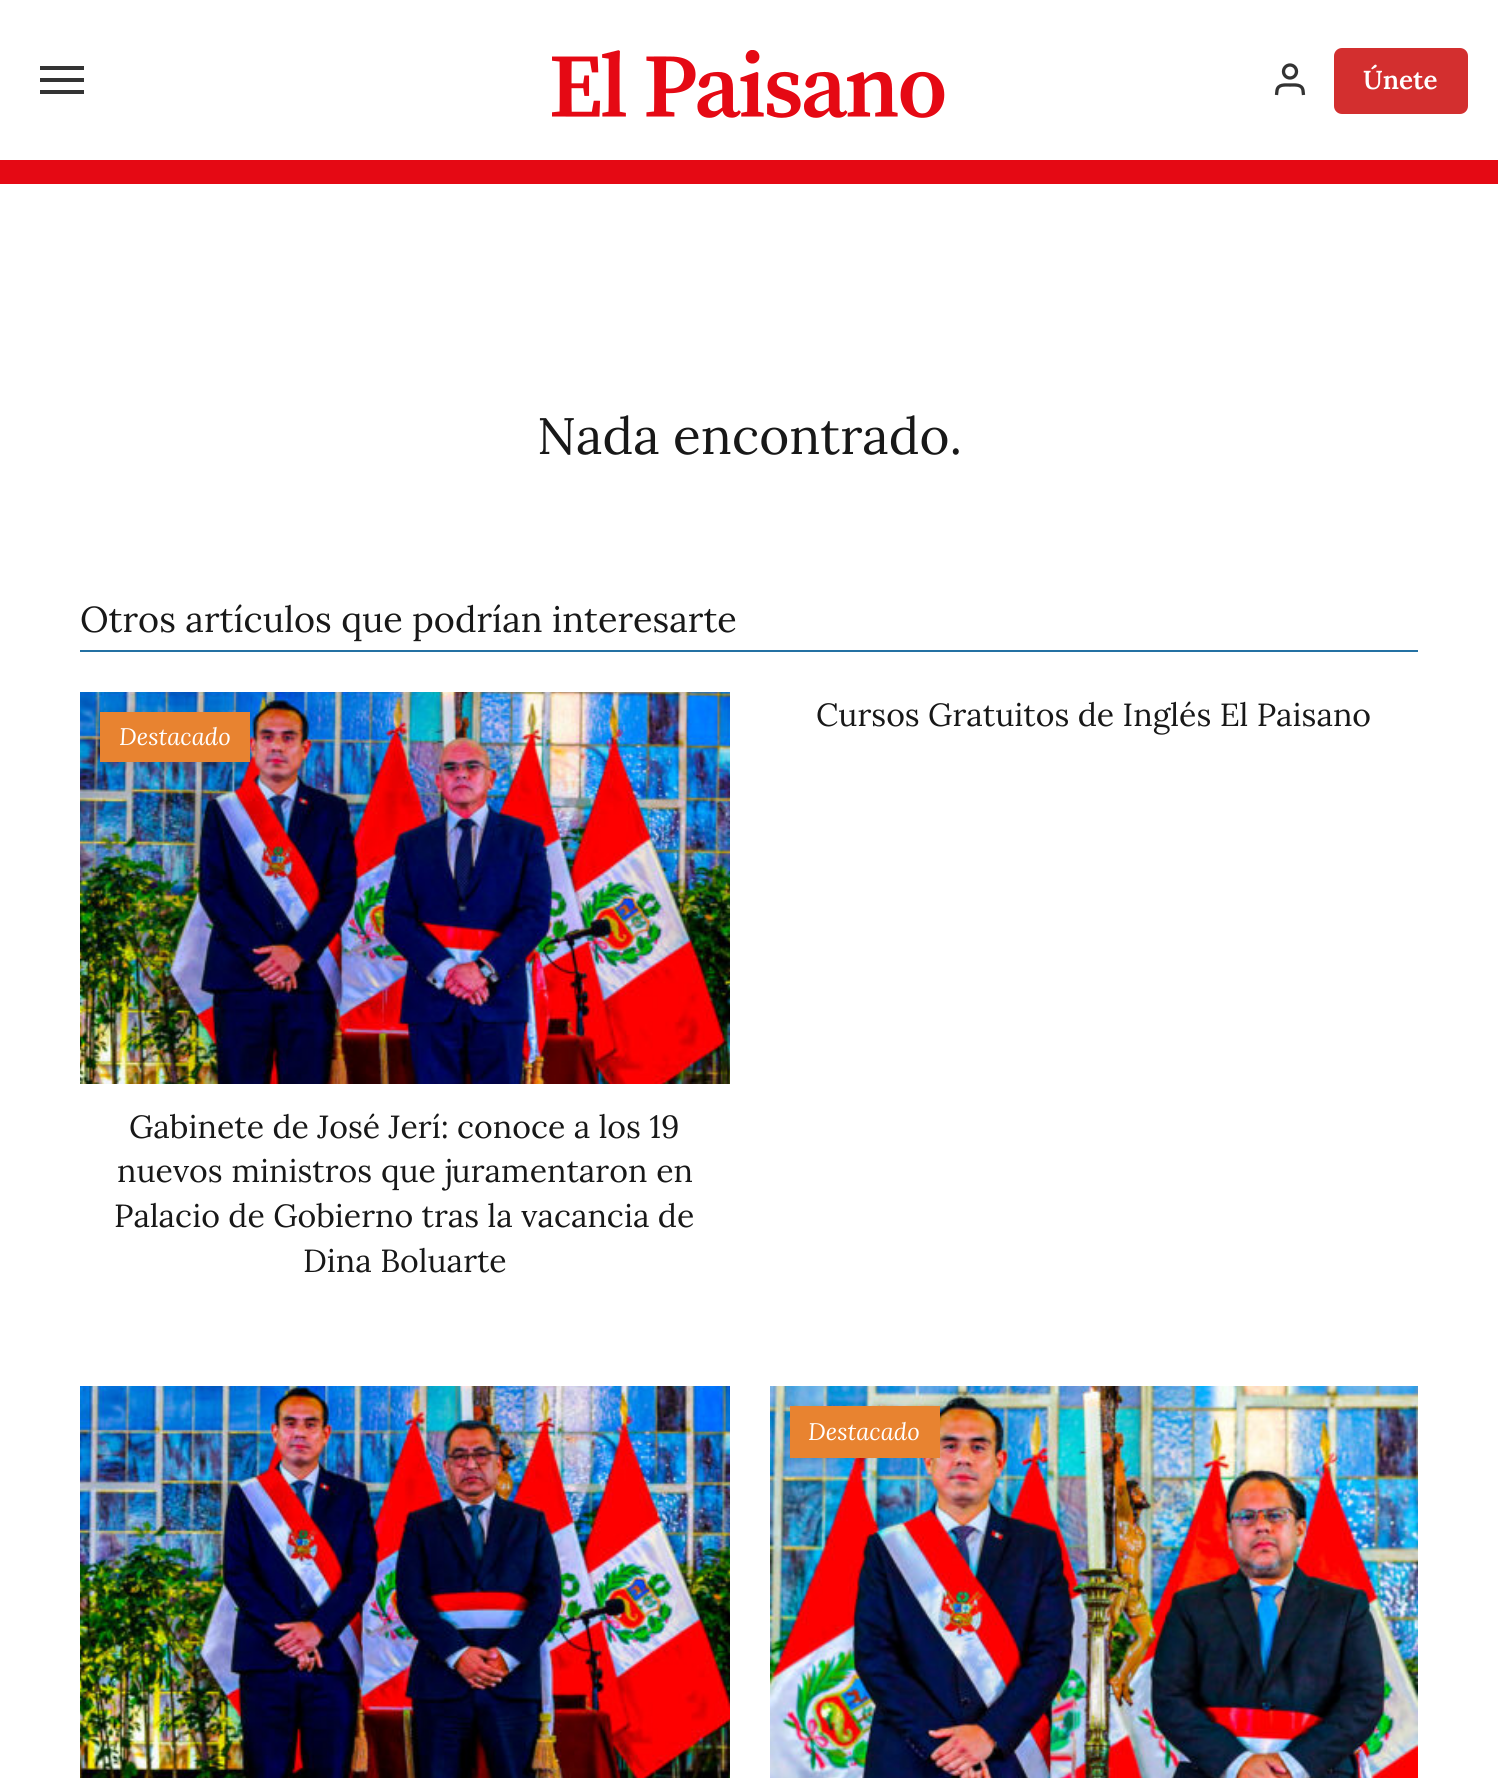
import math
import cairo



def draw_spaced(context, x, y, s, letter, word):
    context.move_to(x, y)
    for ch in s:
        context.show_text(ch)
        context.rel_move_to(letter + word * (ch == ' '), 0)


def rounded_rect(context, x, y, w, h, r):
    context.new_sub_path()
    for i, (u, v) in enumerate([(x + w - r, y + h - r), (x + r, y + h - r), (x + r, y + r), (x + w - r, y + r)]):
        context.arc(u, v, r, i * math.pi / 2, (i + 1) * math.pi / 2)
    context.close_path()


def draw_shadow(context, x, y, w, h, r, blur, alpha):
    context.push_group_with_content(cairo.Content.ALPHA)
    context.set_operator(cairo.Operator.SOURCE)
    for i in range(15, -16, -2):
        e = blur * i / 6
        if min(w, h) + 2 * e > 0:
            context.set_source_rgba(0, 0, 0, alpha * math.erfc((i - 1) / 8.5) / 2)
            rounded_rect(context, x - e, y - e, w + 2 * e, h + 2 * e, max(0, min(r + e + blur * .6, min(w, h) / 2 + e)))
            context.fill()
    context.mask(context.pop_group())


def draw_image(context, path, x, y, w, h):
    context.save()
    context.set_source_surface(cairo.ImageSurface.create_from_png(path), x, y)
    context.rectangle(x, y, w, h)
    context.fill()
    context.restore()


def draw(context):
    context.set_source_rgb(1, 1, 1)
    context.paint()
    context.set_source_rgb(229 / 255, 9 / 255, 20 / 255)
    context.rectangle(0, 160, 1498, 24)
    context.fill()
    context.set_source_rgb(51 / 255, 51 / 255, 51 / 255)
    context.rectangle(40, 66, 44, 4)
    context.fill()
    context.rectangle(40, 78, 44, 4)
    context.fill()
    context.rectangle(40, 90, 44, 4)
    context.fill()
    draw_image(context, "images/1.png", 552, 50, 393, 68)
    context.new_path()
    context.move_to(1303.5, 95)
    context.line_to(1303, 90.5)
    context.curve_to(1302, 84, 1295, 85, 1290, 85)
    context.curve_to(1285, 85, 1278, 84, 1277, 90.5)
    context.line_to(1276.5, 95)
    context.set_line_width(3.3)
    context.stroke()
    context.arc(1290, 71.5, 6.5, 0, 2 * math.pi)
    context.stroke()
    context.set_source_rgb(211 / 255, 47 / 255, 47 / 255)
    rounded_rect(context, 1334, 48, 134, 66, 8)
    context.fill()
    context.set_source_rgb(36 / 255, 113 / 255, 163 / 255)
    context.rectangle(80, 650, 1338, 2)
    context.fill()
    draw_image(context, "images/2.png", 80, 692, 650, 392)
    context.set_source_rgb(0, 0, 0)
    draw_shadow(context, 100, 712, 150, 50, 0, 5, 0.1)
    context.set_source_rgb(232 / 255, 131 / 255, 48 / 255)
    context.rectangle(100, 712, 150, 50)
    context.fill()
    draw_image(context, "images/3.png", 80, 1386, 650, 392)
    draw_image(context, "images/4.png", 770, 1386, 648, 392)
    context.set_source_rgb(0, 0, 0)
    draw_shadow(context, 790, 1406, 150, 52, 0, 5, 0.1)
    context.set_source_rgb(232 / 255, 131 / 255, 48 / 255)
    context.rectangle(790, 1406, 150, 52)
    context.fill()
    context.select_font_face("Lora SemiBold")
    context.set_font_size(26)
    context.set_source_rgb(1, 1, 1)
    context.move_to(1363, 89)
    context.show_text("Únete")
    context.select_font_face("Lora")
    context.set_font_size(51.25)
    context.set_source_rgb(24 / 255, 24 / 255, 24 / 255)
    context.move_to(537, 454)
    context.show_text("Nada encontrado.")
    context.set_font_size(36)
    context.move_to(80, 632)
    context.show_text("Otros artículos que podrían interesarte")
    context.set_font_size(32)
    context.move_to(816, 726)
    context.show_text("Cursos Gratuitos de Inglés El Paisano")
    context.select_font_face("Lora", cairo.FontSlant.ITALIC)
    context.set_font_size(24)
    context.set_source_rgb(1, 1, 1)
    context.move_to(119, 745)
    context.show_text("Destacado")
    context.select_font_face("Lora")
    context.set_font_size(32)
    context.set_source_rgb(24 / 255, 24 / 255, 24 / 255)
    context.move_to(129, 1138)
    context.show_text("Gabinete de José Jerí: conoce a los 19")
    draw_spaced(context, 117, 1182, "nuevos ministros que juramentaron en", 0, 0.5)
    context.move_to(114, 1227)
    context.show_text("Palacio de Gobierno tras la vacancia de")
    context.move_to(303, 1272)
    context.show_text("Dina Boluarte")
    context.select_font_face("Lora", cairo.FontSlant.ITALIC)
    context.set_font_size(24)
    context.set_source_rgb(1, 1, 1)
    context.move_to(808, 1440)
    context.show_text("Destacado")


surface = cairo.ImageSurface(cairo.Format.RGB24, 1498, 1786)
context = cairo.Context(surface)
options = cairo.FontOptions()
options.set_hint_metrics(cairo.HintMetrics.OFF)
options.set_hint_style(cairo.HintStyle.NONE)
context.set_font_options(options)
context.set_miter_limit(4)
draw(context)
surface.write_to_png("out.png")
